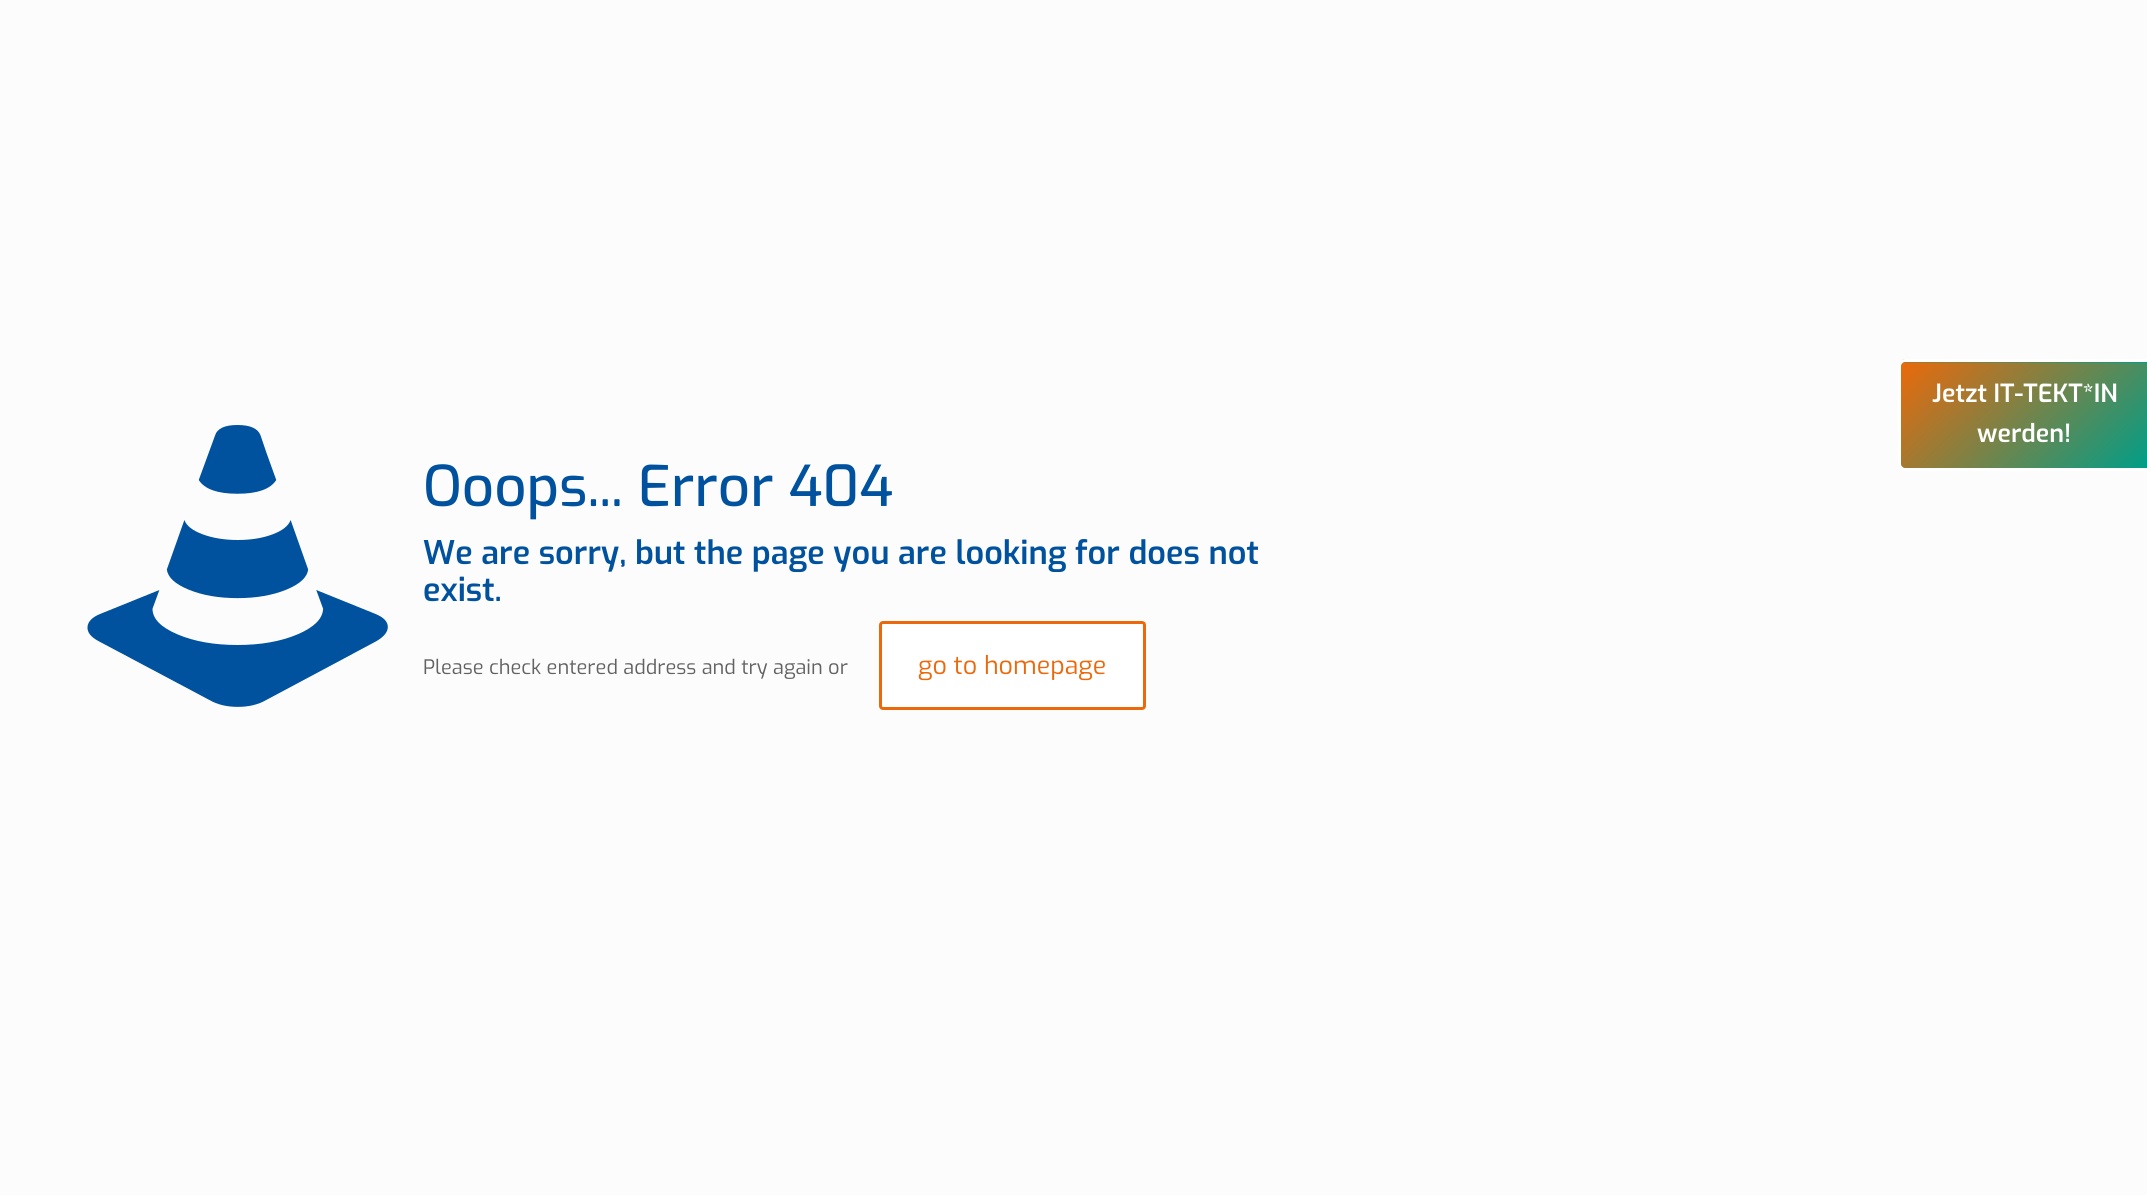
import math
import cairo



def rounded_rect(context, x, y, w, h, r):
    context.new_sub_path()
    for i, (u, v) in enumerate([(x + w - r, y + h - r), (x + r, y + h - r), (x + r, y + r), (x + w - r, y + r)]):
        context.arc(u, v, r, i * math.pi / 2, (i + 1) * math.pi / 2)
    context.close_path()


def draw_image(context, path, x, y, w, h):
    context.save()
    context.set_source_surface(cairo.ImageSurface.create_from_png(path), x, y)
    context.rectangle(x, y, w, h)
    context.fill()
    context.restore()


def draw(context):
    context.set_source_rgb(252 / 255, 252 / 255, 252 / 255)
    context.paint()
    context.save()
    context.new_path()
    context.move_to(1906, 359)
    context.line_to(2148, 359)
    context.line_to(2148, 471)
    context.line_to(1906, 471)
    context.curve_to(1901.5, 471, 1898, 467.5, 1898, 463)
    context.line_to(1898, 367)
    context.curve_to(1898, 362.5, 1901.5, 359, 1906, 359)
    context.close_path()
    context.clip()
    gradient = cairo.LinearGradient(1937, 222, 2112, 398)
    gradient.add_color_stop_rgba(0, 235 / 255, 105 / 255, 11 / 255, 1)
    gradient.add_color_stop_rgba(1, 0, 158 / 255, 136 / 255, 1)
    context.set_source(gradient)
    context.rectangle(1901, 359, 246, 4)
    context.fill()
    context.restore()
    gradient = cairo.LinearGradient(1937, 327, 2112, 503)
    gradient.add_color_stop_rgba(0, 235 / 255, 105 / 255, 11 / 255, 1)
    gradient.add_color_stop_rgba(1, 0, 158 / 255, 136 / 255, 1)
    context.set_source(gradient)
    context.rectangle(1901, 363, 246, 105)
    context.fill()
    context.set_source_rgb(1, 1, 1)
    context.set_fill_rule(cairo.FillRule.EVEN_ODD)
    context.new_path()
    context.move_to(1905, 359)
    context.line_to(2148, 359)
    context.line_to(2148, 471)
    context.line_to(1905, 471)
    context.curve_to(1901, 471, 1898, 468, 1898, 464)
    context.line_to(1898, 366)
    context.curve_to(1898, 362, 1901, 359, 1905, 359)
    context.close_path()
    context.move_to(1905, 362)
    context.line_to(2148, 362)
    context.line_to(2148, 468)
    context.line_to(1905, 468)
    context.curve_to(1903, 468, 1901, 466, 1901, 464)
    context.line_to(1901, 366)
    context.curve_to(1901, 364, 1903, 362, 1905, 362)
    context.close_path()
    context.fill()
    draw_image(context, "images/1.png", 87, 425, 301, 282)
    rounded_rect(context, 880.5, 622.5, 264, 86, 2.5)
    context.fill_preserve()
    context.set_source_rgb(235 / 255, 105 / 255, 11 / 255)
    context.set_line_width(3)
    context.stroke()
    context.select_font_face("Exo SemiBold")
    context.set_font_size(25)
    context.set_source_rgb(1, 1, 1)
    context.move_to(1932, 402)
    context.show_text("Jetzt IT-TEKT*IN")
    context.move_to(1977, 442)
    context.show_text("werden!")
    context.select_font_face("Exo Medium")
    context.set_font_size(56.25)
    context.set_source_rgb(0, 81 / 255, 158 / 255)
    context.move_to(423, 506)
    context.show_text("Ooops... Error 404")
    context.select_font_face("Exo SemiBold")
    context.set_font_size(32.5)
    context.move_to(423, 564)
    context.show_text("We are sorry, but the page you are looking for does not")
    context.move_to(423, 601)
    context.show_text("exist.")
    context.select_font_face("Exo")
    context.set_font_size(20)
    context.set_source_rgb(98 / 255, 98 / 255, 98 / 255)
    context.move_to(423, 674)
    context.show_text("Please check entered address and try again or")
    context.set_font_size(25)
    context.set_source_rgb(235 / 255, 105 / 255, 11 / 255)
    context.move_to(918, 674)
    context.show_text("go to homepage")


surface = cairo.ImageSurface(cairo.Format.RGB24, 2147, 1195)
context = cairo.Context(surface)
options = cairo.FontOptions()
options.set_hint_metrics(cairo.HintMetrics.OFF)
options.set_hint_style(cairo.HintStyle.NONE)
context.set_font_options(options)
context.set_miter_limit(4)
draw(context)
surface.write_to_png("out.png")
